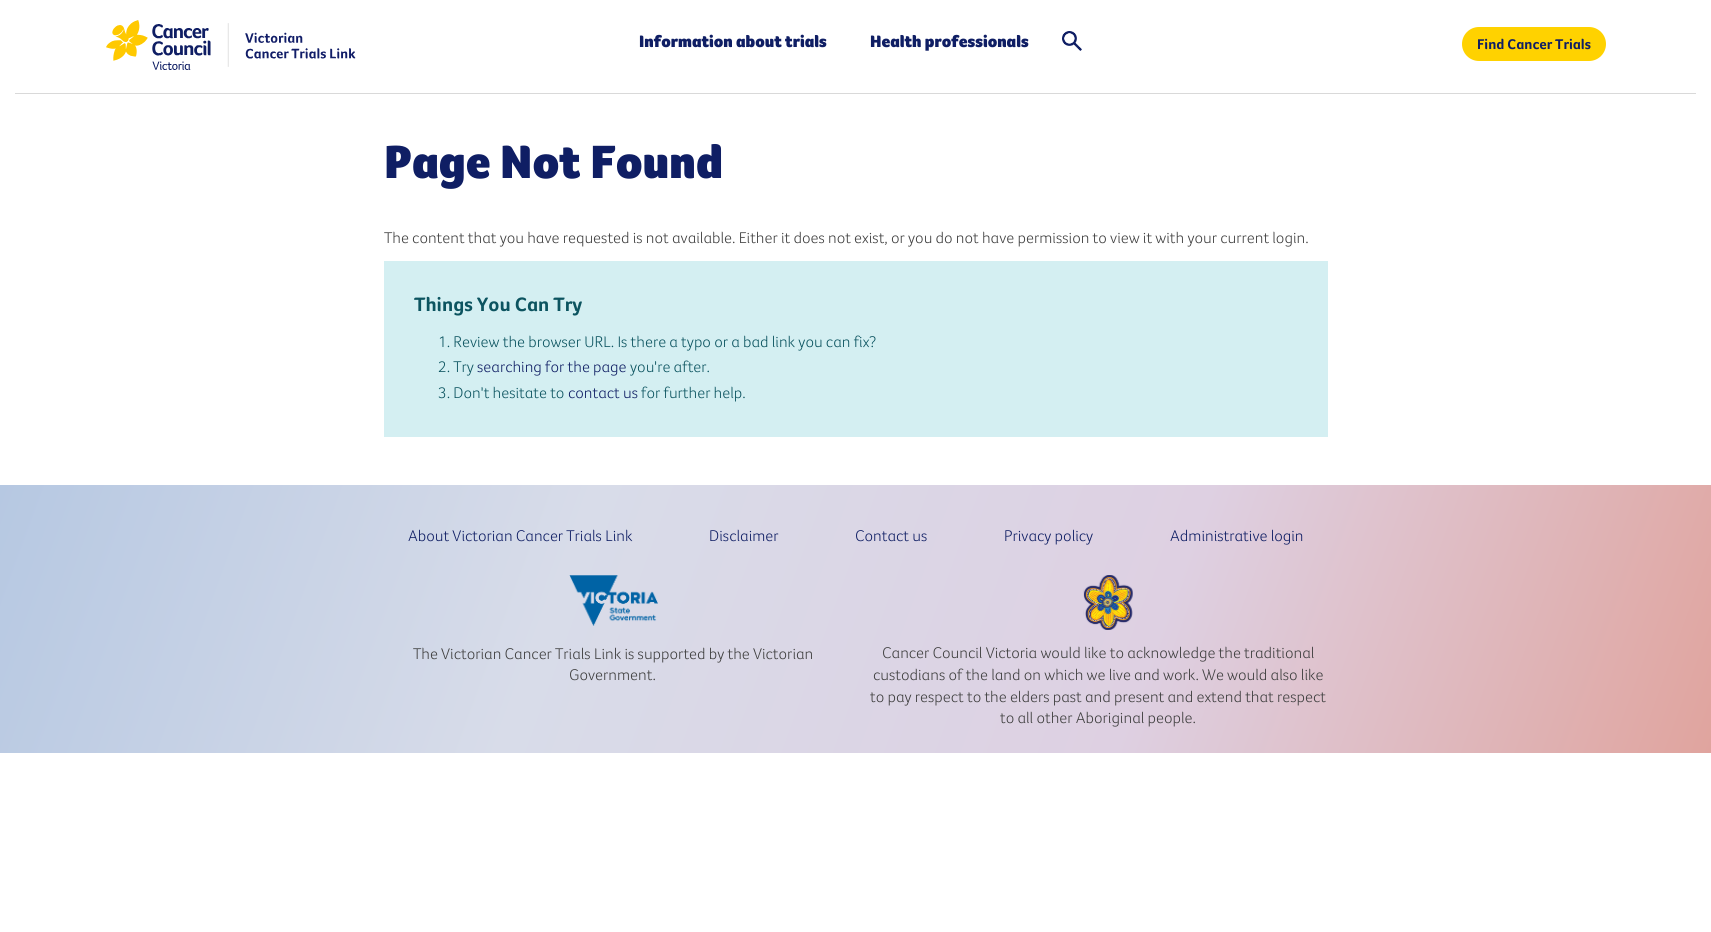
import math
import cairo



def rounded_rect(context, x, y, w, h, r):
    context.new_sub_path()
    for i, (u, v) in enumerate([(x + w - r, y + h - r), (x + r, y + h - r), (x + r, y + r), (x + w - r, y + r)]):
        context.arc(u, v, r, i * math.pi / 2, (i + 1) * math.pi / 2)
    context.close_path()


def draw_image(context, path, x, y, w, h):
    context.save()
    context.set_source_surface(cairo.ImageSurface.create_from_png(path), x, y)
    context.rectangle(x, y, w, h)
    context.fill()
    context.restore()


def draw(context):
    context.set_source_rgb(1, 1, 1)
    context.paint()
    draw_image(context, "images/1.png", 106, 20, 250, 50)
    draw_image(context, "images/2.png", 1062, 31, 20, 20)
    context.set_source_rgb(1, 210 / 255, 0)
    rounded_rect(context, 1462, 27, 144, 34, 17)
    context.fill()
    context.set_source_rgb(217 / 255, 217 / 255, 217 / 255)
    context.rectangle(15, 93, 1681, 1)
    context.fill()
    context.set_source_rgb(212 / 255, 239 / 255, 242 / 255)
    context.rectangle(384, 261, 944, 176)
    context.fill()
    gradient = cairo.LinearGradient(57, 328, 1654, 910)
    gradient.add_color_stop_rgba(0, 182 / 255, 200 / 255, 226 / 255, 1)
    gradient.add_color_stop_rgba(0.33, 216 / 255, 220 / 255, 233 / 255, 1)
    gradient.add_color_stop_rgba(0.67, 222 / 255, 208 / 255, 226 / 255, 1)
    gradient.add_color_stop_rgba(1, 224 / 255, 164 / 255, 158 / 255, 1)
    context.set_source(gradient)
    context.rectangle(0, 485, 1711, 268)
    context.fill()
    draw_image(context, "images/3.png", 569, 575, 89, 51)
    draw_image(context, "images/4.png", 1083, 575, 50, 55)
    context.select_font_face("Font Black")
    context.set_font_size(17)
    context.set_source_rgb(15 / 255, 30 / 255, 100 / 255)
    context.move_to(639, 47)
    context.show_text("Information about trials")
    context.move_to(870, 47)
    context.show_text("Health professionals")
    context.select_font_face("Font", cairo.FontSlant.NORMAL, cairo.FontWeight.BOLD)
    context.set_font_size(14.5)
    context.move_to(1477, 49)
    context.show_text("Find Cancer Trials")
    context.select_font_face("Font Black")
    context.set_font_size(48)
    context.move_to(384, 178)
    context.show_text("Page Not Found")
    context.select_font_face("Font Light")
    context.set_font_size(16)
    context.set_source_rgb(63 / 255, 63 / 255, 63 / 255)
    context.move_to(384, 243)
    context.show_text("The content that you have requested is not available. Either it does not exist, or you do not have permission to view it with your current login.")
    context.select_font_face("Font", cairo.FontSlant.NORMAL, cairo.FontWeight.BOLD)
    context.set_font_size(20)
    context.set_source_rgb(12 / 255, 84 / 255, 96 / 255)
    context.move_to(414, 311)
    context.show_text("Things You Can Try")
    context.select_font_face("Font Light")
    context.set_font_size(16)
    context.move_to(438, 347)
    context.show_text("1. Review the browser URL. Is there a typo or a bad link you can fix?")
    context.move_to(438, 372)
    context.show_text("2. Try")
    context.set_source_rgb(15 / 255, 30 / 255, 100 / 255)
    context.move_to(477, 372)
    context.show_text("searching for the page")
    context.set_source_rgb(12 / 255, 84 / 255, 96 / 255)
    context.move_to(630, 372)
    context.show_text("you're after.")
    context.move_to(438, 398)
    context.show_text("3. Don't hesitate to")
    context.set_source_rgb(15 / 255, 30 / 255, 100 / 255)
    context.move_to(568, 398)
    context.show_text("contact us")
    context.set_source_rgb(12 / 255, 84 / 255, 96 / 255)
    context.move_to(641, 398)
    context.show_text("for further help.")
    context.set_source_rgb(15 / 255, 30 / 255, 100 / 255)
    context.move_to(408, 541)
    context.show_text("About Victorian Cancer Trials Link")
    context.move_to(709, 541)
    context.show_text("Disclaimer")
    context.move_to(855, 541)
    context.show_text("Contact us")
    context.move_to(1004, 541)
    context.show_text("Privacy policy")
    context.move_to(1170, 541)
    context.show_text("Administrative login")
    context.set_source_rgb(63 / 255, 63 / 255, 63 / 255)
    context.move_to(413, 659)
    context.show_text("The Victorian Cancer Trials Link is supported by the Victorian")
    context.move_to(569, 680)
    context.show_text("Government.")
    context.move_to(882, 658)
    context.show_text("Cancer Council Victoria would like to acknowledge the traditional")
    context.move_to(873, 680)
    context.show_text("custodians of the land on which we live and work. We would also like")
    context.move_to(870, 702)
    context.show_text("to pay respect to the elders past and present and extend that respect")
    context.move_to(1000, 723)
    context.show_text("to all other Aboriginal people.")


surface = cairo.ImageSurface(cairo.Format.RGB24, 1711, 932)
context = cairo.Context(surface)
options = cairo.FontOptions()
options.set_hint_metrics(cairo.HintMetrics.OFF)
options.set_hint_style(cairo.HintStyle.NONE)
context.set_font_options(options)
context.set_miter_limit(4)
draw(context)
surface.write_to_png("out.png")
